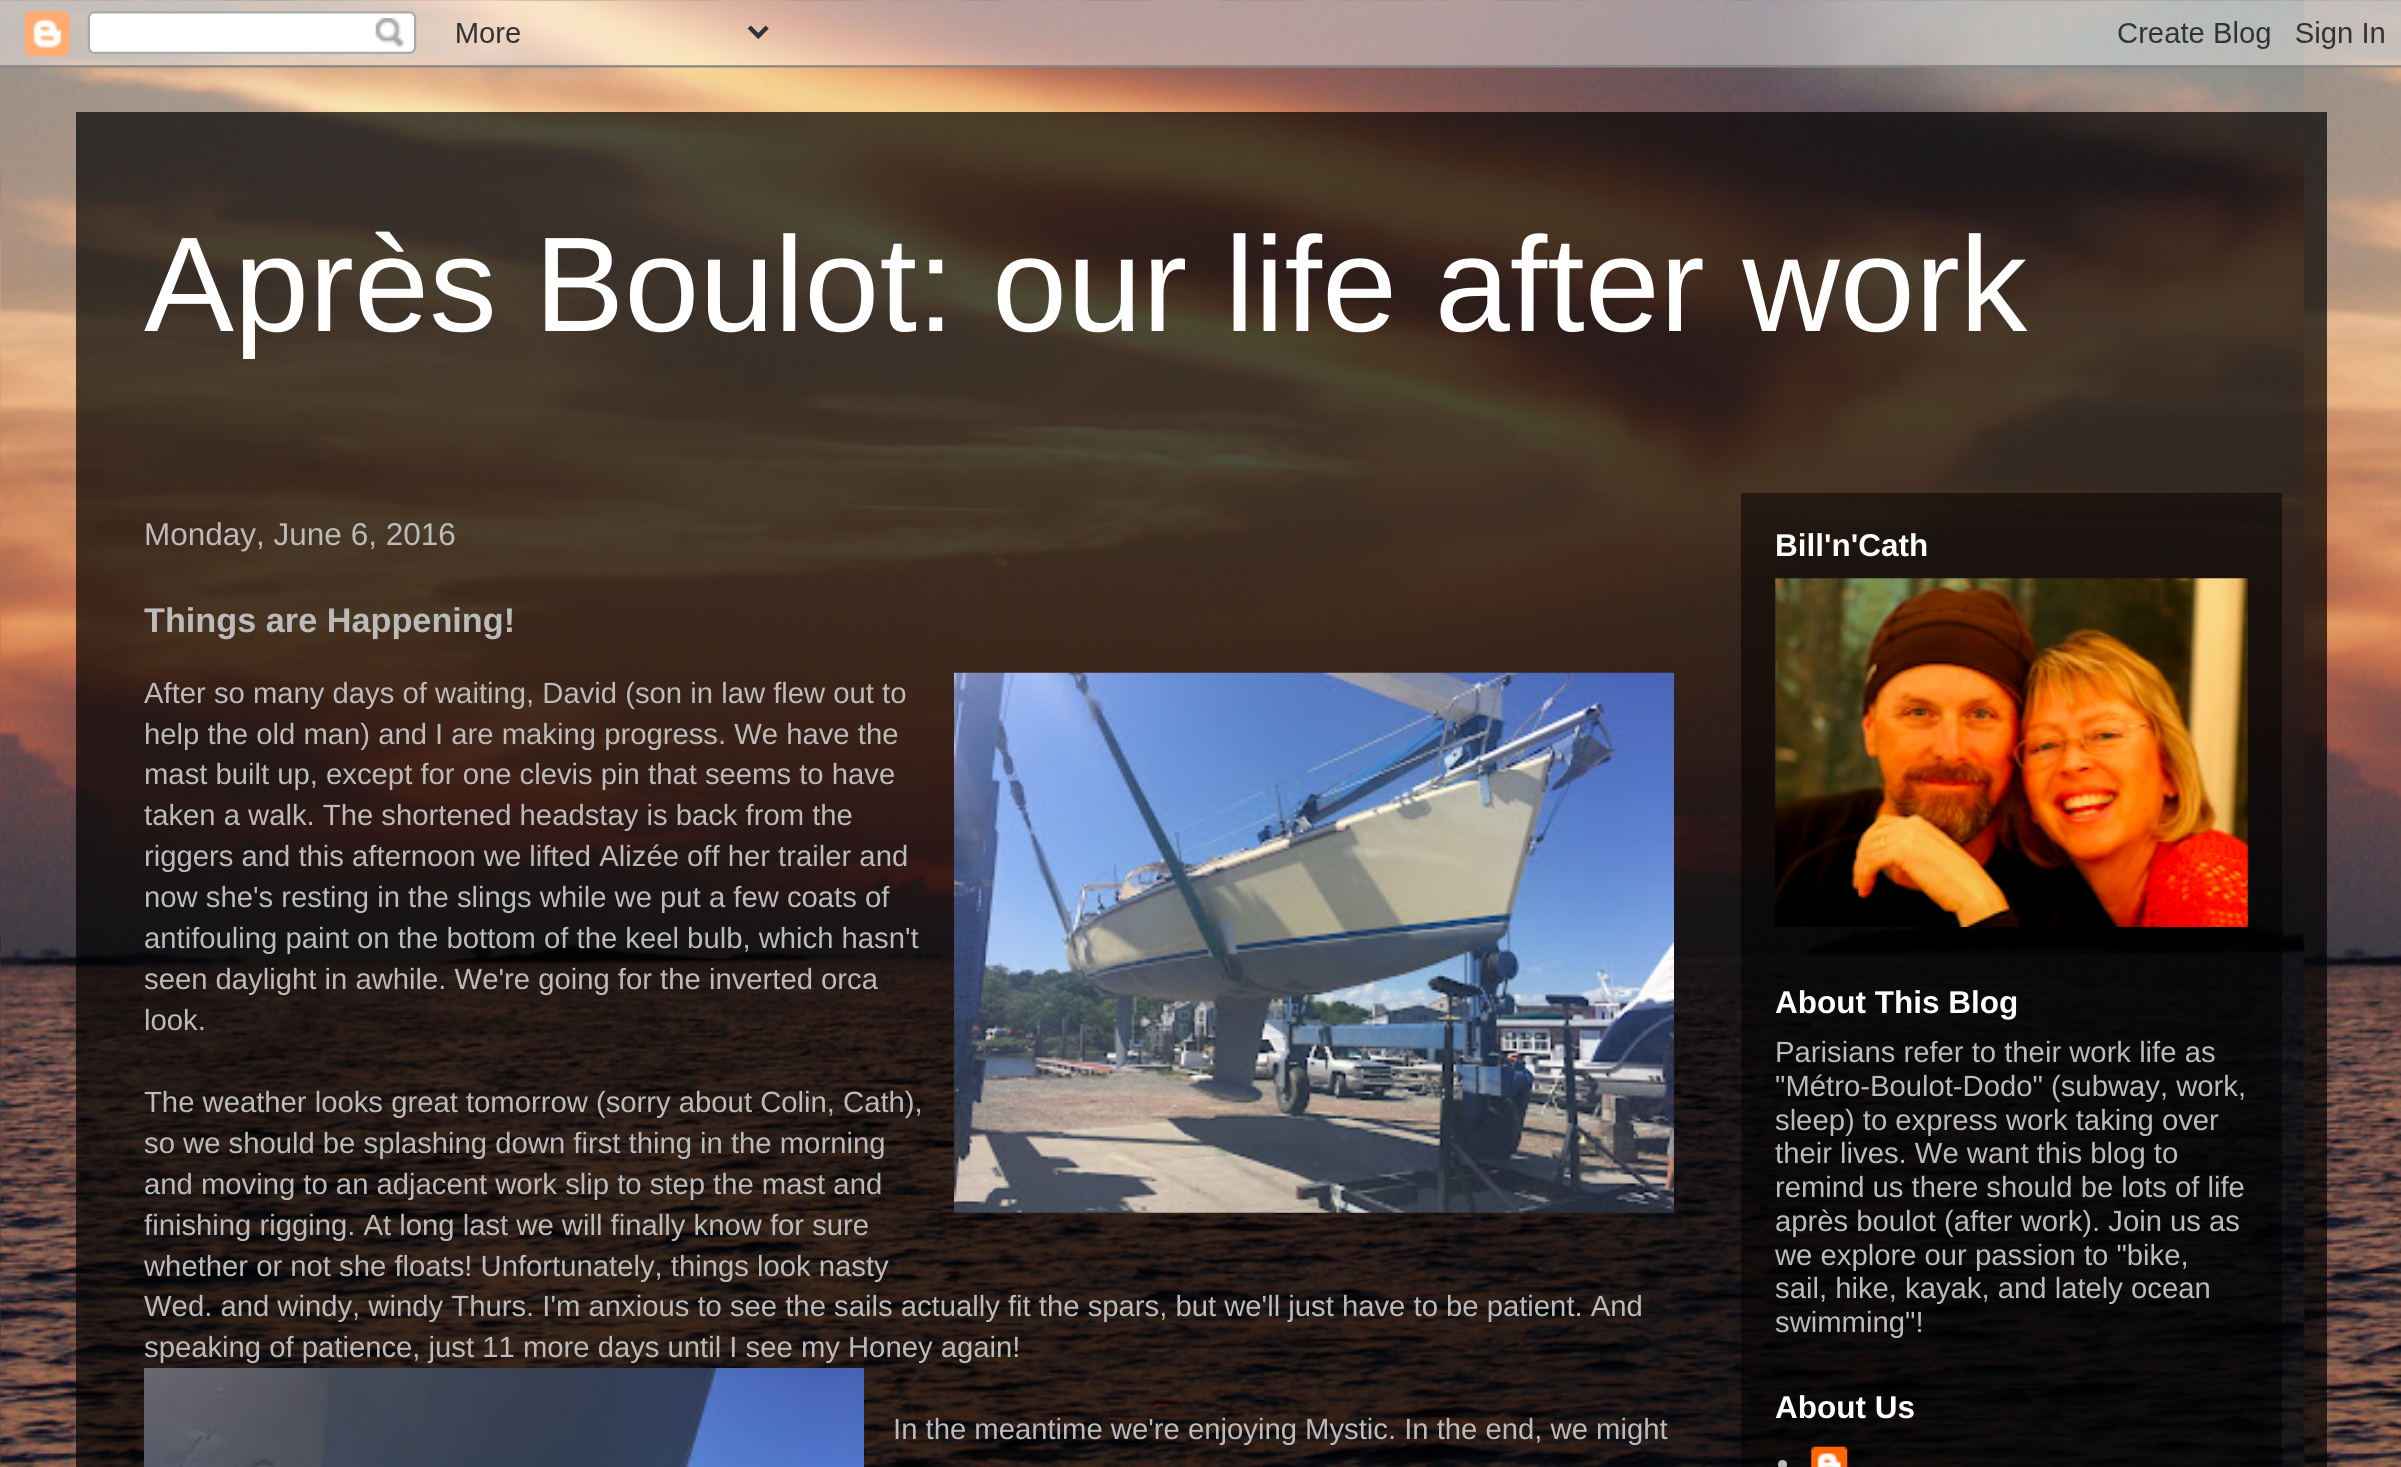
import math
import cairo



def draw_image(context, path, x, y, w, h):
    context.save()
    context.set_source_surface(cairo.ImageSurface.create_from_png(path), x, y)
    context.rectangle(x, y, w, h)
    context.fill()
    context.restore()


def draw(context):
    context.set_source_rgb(1, 1, 1)
    context.paint()
    draw_image(context, "images/1.png", 0, 0, 2401, 1467)
    draw_image(context, "images/2.png", 0, 0, 2401, 68)
    context.set_source_rgba(0, 0, 0, 0.7)
    context.rectangle(76, 112, 2251, 1355)
    context.fill()
    context.set_source_rgba(0, 0, 0, 0.5)
    context.rectangle(1741, 493, 541, 974)
    context.fill()
    draw_image(context, "images/3.png", 954, 672, 720, 541)
    draw_image(context, "images/4.png", 144, 1368, 720, 99)
    draw_image(context, "images/5.png", 1775, 578, 473, 349)
    context.set_source_rgb(187 / 255, 187 / 255, 187 / 255)
    context.arc(1782.5, 1464.5, 4.5, 0, 2 * math.pi)
    context.fill()
    draw_image(context, "images/6.png", 1811, 1446, 37, 21)
    context.select_font_face("Liberation Sans")
    context.set_font_size(135)
    context.set_source_rgb(1, 1, 1)
    context.move_to(144, 331)
    context.show_text("Après Boulot: our life after work")
    context.set_font_size(31.5)
    context.set_source_rgb(187 / 255, 187 / 255, 187 / 255)
    context.move_to(144, 545)
    context.show_text("Monday, June 6, 2016")
    context.select_font_face("Liberation Sans", cairo.FontSlant.NORMAL, cairo.FontWeight.BOLD)
    context.set_font_size(34.25)
    context.move_to(144, 632)
    context.show_text("Things are Happening!")
    context.select_font_face("Liberation Sans")
    context.set_font_size(29.25)
    context.move_to(144, 703)
    context.show_text("After so many days of waiting, David (son in law flew out to")
    context.move_to(144, 744)
    context.show_text("help the old man) and I are making progress. We have the")
    context.move_to(144, 784)
    context.show_text("mast built up, except for one clevis pin that seems to have")
    context.move_to(144, 825)
    context.show_text("taken a walk. The shortened headstay is back from the")
    context.move_to(144, 866)
    context.show_text("riggers and this afternoon we lifted Alizée off her trailer and")
    context.move_to(144, 907)
    context.show_text("now she's resting in the slings while we put a few coats of")
    context.move_to(144, 948)
    context.show_text("antifouling paint on the bottom of the keel bulb, which hasn't")
    context.move_to(144, 989)
    context.show_text("seen daylight in awhile. We're going for the inverted orca")
    context.move_to(144, 1030)
    context.show_text("look.")
    context.move_to(144, 1112)
    context.show_text("The weather looks great tomorrow (sorry about Colin, Cath),")
    context.move_to(144, 1153)
    context.show_text("so we should be splashing down first thing in the morning")
    context.move_to(144, 1194)
    context.show_text("and moving to an adjacent work slip to step the mast and")
    context.move_to(144, 1235)
    context.show_text("finishing rigging. At long last we will finally know for sure")
    context.move_to(144, 1276)
    context.show_text("whether or not she floats! Unfortunately, things look nasty")
    context.move_to(144, 1316)
    context.show_text("Wed. and windy, windy Thurs. I'm anxious to see the sails actually fit the spars, but we'll just have to be patient. And")
    context.move_to(144, 1357)
    context.show_text("speaking of patience, just 11 more days until I see my Honey again!")
    context.move_to(893, 1439)
    context.show_text("In the meantime we're enjoying Mystic. In the end, we might")
    context.select_font_face("Liberation Sans", cairo.FontSlant.NORMAL, cairo.FontWeight.BOLD)
    context.set_font_size(31.5)
    context.set_source_rgb(1, 1, 1)
    context.move_to(1775, 556)
    context.show_text("Bill'n'Cath")
    context.move_to(1775, 1013)
    context.show_text("About This Blog")
    context.select_font_face("Liberation Sans")
    context.set_font_size(29.25)
    context.set_source_rgb(187 / 255, 187 / 255, 187 / 255)
    context.move_to(1775, 1062)
    context.show_text("Parisians refer to their work life as")
    context.move_to(1775, 1096)
    context.show_text("\"Métro-Boulot-Dodo\" (subway, work,")
    context.move_to(1775, 1130)
    context.show_text("sleep) to express work taking over")
    context.move_to(1775, 1163)
    context.show_text("their lives. We want this blog to")
    context.move_to(1775, 1197)
    context.show_text("remind us there should be lots of life")
    context.move_to(1775, 1231)
    context.show_text("après boulot (after work). Join us as")
    context.move_to(1775, 1265)
    context.show_text("we explore our passion to \"bike,")
    context.move_to(1775, 1298)
    context.show_text("sail, hike, kayak, and lately ocean")
    context.move_to(1775, 1332)
    context.show_text("swimming\"!")
    context.select_font_face("Liberation Sans", cairo.FontSlant.NORMAL, cairo.FontWeight.BOLD)
    context.set_font_size(31.5)
    context.set_source_rgb(1, 1, 1)
    context.move_to(1775, 1418)
    context.show_text("About Us")


surface = cairo.ImageSurface(cairo.Format.RGB24, 2401, 1467)
context = cairo.Context(surface)
options = cairo.FontOptions()
options.set_hint_metrics(cairo.HintMetrics.OFF)
options.set_hint_style(cairo.HintStyle.NONE)
context.set_font_options(options)
context.set_miter_limit(4)
draw(context)
surface.write_to_png("out.png")
